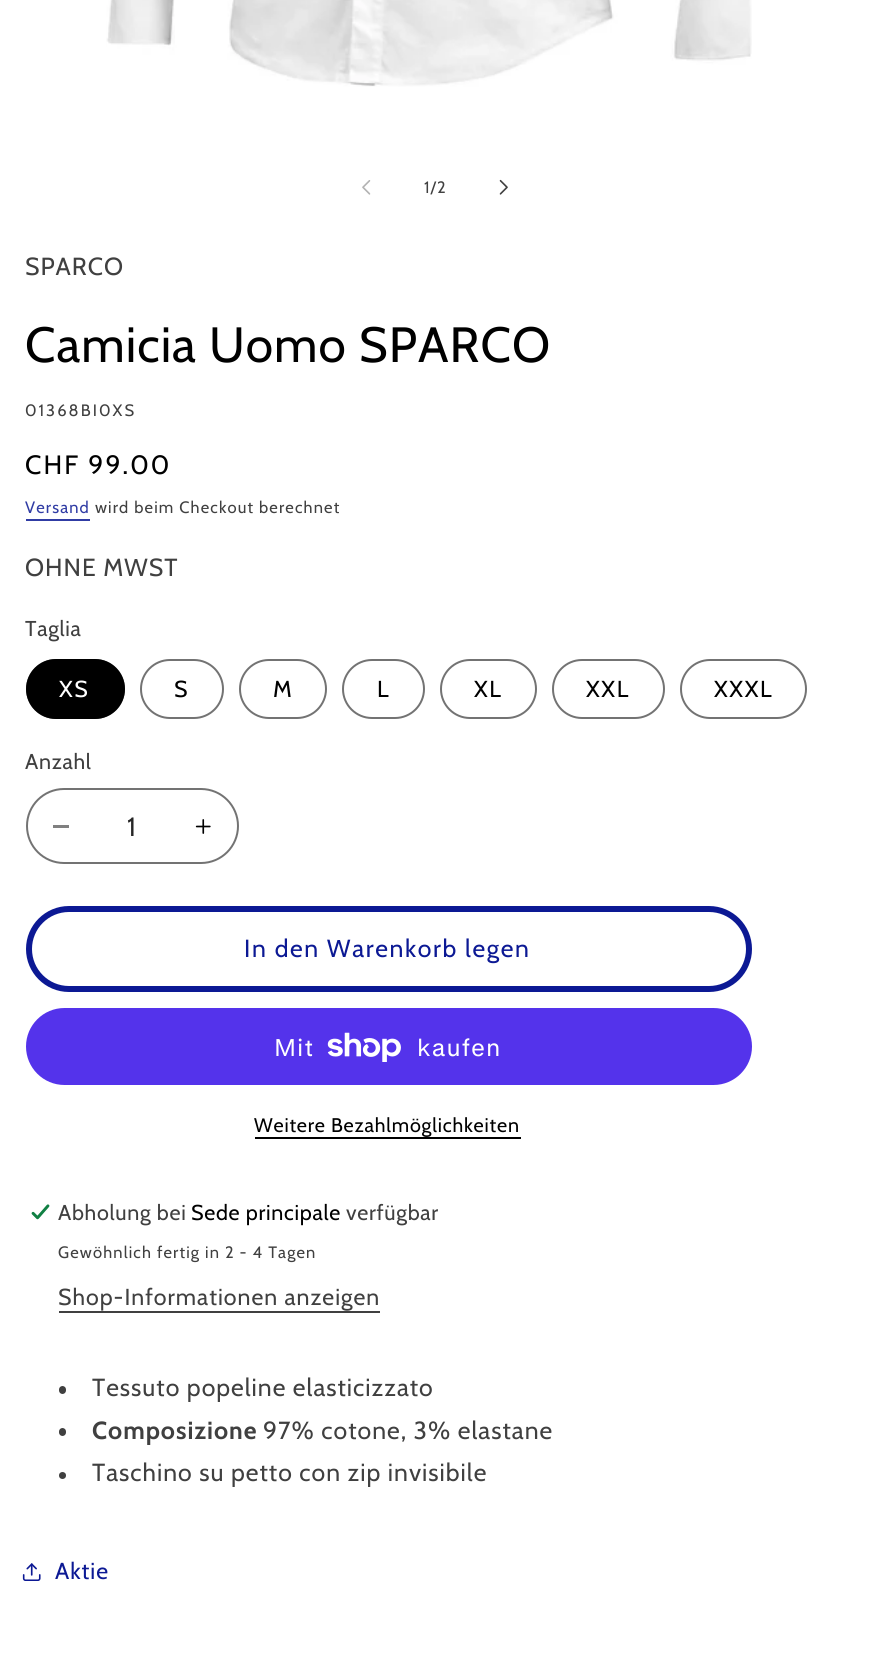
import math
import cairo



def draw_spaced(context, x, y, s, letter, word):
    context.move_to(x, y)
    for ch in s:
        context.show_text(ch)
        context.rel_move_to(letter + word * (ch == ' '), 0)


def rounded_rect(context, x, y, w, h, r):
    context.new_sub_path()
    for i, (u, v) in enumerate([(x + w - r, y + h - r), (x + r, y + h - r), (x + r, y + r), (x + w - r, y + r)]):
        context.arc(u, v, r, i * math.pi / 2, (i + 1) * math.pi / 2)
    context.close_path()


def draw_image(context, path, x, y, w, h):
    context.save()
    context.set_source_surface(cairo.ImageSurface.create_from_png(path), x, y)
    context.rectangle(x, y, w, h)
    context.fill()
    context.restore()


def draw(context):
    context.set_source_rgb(1, 1, 1)
    context.paint()
    draw_image(context, "images/1.png", 106, 0, 646, 87)
    draw_image(context, "images/2.png", 362, 180, 9, 15)
    draw_image(context, "images/3.png", 499, 179, 9, 16)
    context.set_source_rgb(48 / 255, 60 / 255, 164 / 255)
    context.rectangle(26, 519, 64, 2)
    context.fill()
    context.set_source_rgb(0, 0, 0)
    rounded_rect(context, 26, 659, 99, 60, 30)
    context.fill()
    rounded_rect(context, 27, 660, 97, 58, 29)
    context.set_source_rgba(0, 0, 0, 0.55)
    context.stroke()
    rounded_rect(context, 141, 660, 82, 58, 29)
    context.set_source_rgb(115 / 255, 115 / 255, 115 / 255)
    context.stroke()
    rounded_rect(context, 240, 660, 86, 58, 29)
    context.stroke()
    rounded_rect(context, 343, 660, 81, 58, 29)
    context.stroke()
    rounded_rect(context, 441, 660, 95, 58, 29)
    context.stroke()
    rounded_rect(context, 553, 660, 111, 58, 29)
    context.stroke()
    rounded_rect(context, 681, 660, 125, 58, 29)
    context.stroke()
    context.set_source_rgb(128 / 255, 128 / 255, 128 / 255)
    context.rectangle(53, 825, 16, 3)
    context.fill()
    draw_image(context, "images/4.png", 195, 819, 16, 15)
    rounded_rect(context, 27, 789, 211, 74, 37)
    context.set_source_rgb(115 / 255, 115 / 255, 115 / 255)
    context.stroke()
    rounded_rect(context, 29, 909, 720, 80, 40)
    context.set_source_rgb(12 / 255, 25 / 255, 148 / 255)
    context.set_line_width(6)
    context.stroke()
    context.set_source_rgb(84 / 255, 51 / 255, 235 / 255)
    rounded_rect(context, 26, 1008, 726, 77, 38.5)
    context.fill()
    draw_image(context, "images/5.png", 327, 1032, 74, 30)
    context.set_source_rgb(0, 0, 0)
    context.rectangle(255, 1137, 266, 2)
    context.fill()
    draw_image(context, "images/6.png", 31, 1204, 19, 16)
    context.set_source_rgb(64 / 255, 64 / 255, 64 / 255)
    context.rectangle(59, 1311, 321, 2)
    context.fill()
    rounded_rect(context, 59, 1386, 7, 8, 3.5)
    context.fill()
    rounded_rect(context, 59, 1428, 7, 8, 3.5)
    context.fill()
    context.arc(62.5, 1475.5, 3.5, 0, 2 * math.pi)
    context.fill()
    draw_image(context, "images/7.png", 22, 1563, 19, 18)
    context.select_font_face("Cabin")
    context.set_font_size(16.5)
    draw_spaced(context, 424, 193, "1/2", 1.15, 0)
    context.set_font_size(24.75)
    draw_spaced(context, 25, 275, "SPARCO", 1, 0)
    context.set_font_size(49.5)
    context.set_source_rgb(0, 0, 0)
    draw_spaced(context, 25, 362, "Camicia Uomo SPARCO", 1, 0)
    context.set_font_size(16.5)
    context.set_source_rgb(64 / 255, 64 / 255, 64 / 255)
    draw_spaced(context, 25, 416, "01368BI0XS", 2.1, 0)
    context.set_font_size(26.5)
    context.set_source_rgb(0, 0, 0)
    draw_spaced(context, 25, 474, "CHF 99.00", 2.1, 0)
    context.set_font_size(16.5)
    context.set_source_rgb(48 / 255, 60 / 255, 164 / 255)
    draw_spaced(context, 25, 513, "Versand", 1.15, 0)
    context.set_source_rgb(64 / 255, 64 / 255, 64 / 255)
    draw_spaced(context, 95, 513, "wird beim Checkout berechnet", 1.15, 0)
    context.set_font_size(24.75)
    draw_spaced(context, 25, 576, "OHNE MWST", 1, 0)
    context.set_font_size(21.5)
    draw_spaced(context, 25, 636, "Taglia", 0.7, 0)
    context.set_font_size(23.1)
    context.set_source_rgb(1, 1, 1)
    draw_spaced(context, 59, 697, "XS", 1.65, 0)
    context.set_source_rgb(0, 0, 0)
    draw_spaced(context, 174, 697, "S", 1.65, 0)
    draw_spaced(context, 273, 697, "M", 1.65, 0)
    draw_spaced(context, 377, 697, "L", 1.65, 0)
    draw_spaced(context, 474, 697, "XL", 1.65, 0)
    draw_spaced(context, 586, 697, "XXL", 1.65, 0)
    draw_spaced(context, 714, 697, "XXXL", 1.65, 0)
    context.set_font_size(21.5)
    context.set_source_rgb(64 / 255, 64 / 255, 64 / 255)
    draw_spaced(context, 25, 769, "Anzahl", 0.7, 0)
    context.set_font_size(26.5)
    context.set_source_rgb(38 / 255, 38 / 255, 38 / 255)
    context.move_to(127, 836)
    context.show_text("1")
    context.set_font_size(24.75)
    context.set_source_rgb(12 / 255, 25 / 255, 148 / 255)
    draw_spaced(context, 244, 957, "In den Warenkorb legen", 1.65, 0)
    context.select_font_face("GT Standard")
    context.set_font_size(24)
    context.set_source_rgb(1, 1, 1)
    draw_spaced(context, 274, 1056, "Mit", 1, 0)
    draw_spaced(context, 417, 1056, "kaufen", 1, 0)
    context.select_font_face("Cabin")
    context.set_font_size(19.75)
    context.set_source_rgb(0, 0, 0)
    draw_spaced(context, 254, 1132, "Weitere Bezahlmöglichkeiten", 0.8, 0)
    context.set_font_size(21.5)
    context.set_source_rgb(64 / 255, 64 / 255, 64 / 255)
    draw_spaced(context, 58, 1220, "Abholung bei", 0.7, 0)
    context.set_source_rgb(0, 0, 0)
    draw_spaced(context, 191, 1220, "Sede principale", 0.7, 0)
    context.set_source_rgb(64 / 255, 64 / 255, 64 / 255)
    draw_spaced(context, 346, 1220, "verfügbar", 0.7, 0)
    context.set_font_size(16.5)
    draw_spaced(context, 58, 1258, "Gewöhnlich fertig in 2 - 4 Tagen", 1.15, 0)
    context.set_font_size(23.1)
    draw_spaced(context, 58, 1305, "Shop-Informationen anzeigen", 1, 0)
    context.set_font_size(24.75)
    draw_spaced(context, 92, 1396, "Tessuto popeline elasticizzato", 1, 0)
    context.select_font_face("Cabin", cairo.FontSlant.NORMAL, cairo.FontWeight.BOLD)
    draw_spaced(context, 92, 1439, "Composizione", 1, 0)
    context.select_font_face("Cabin")
    draw_spaced(context, 263, 1439, "97% cotone, 3% elastane", 1, 0)
    draw_spaced(context, 92, 1481, "Taschino su petto con zip invisibile", 1, 0)
    context.set_font_size(23.1)
    context.set_source_rgb(12 / 255, 25 / 255, 148 / 255)
    draw_spaced(context, 55, 1579, "Aktie", 1, 0)


surface = cairo.ImageSurface(cairo.Format.RGB24, 869, 1662)
context = cairo.Context(surface)
options = cairo.FontOptions()
options.set_hint_metrics(cairo.HintMetrics.OFF)
options.set_hint_style(cairo.HintStyle.NONE)
context.set_font_options(options)
context.set_miter_limit(4)
draw(context)
surface.write_to_png("out.png")
